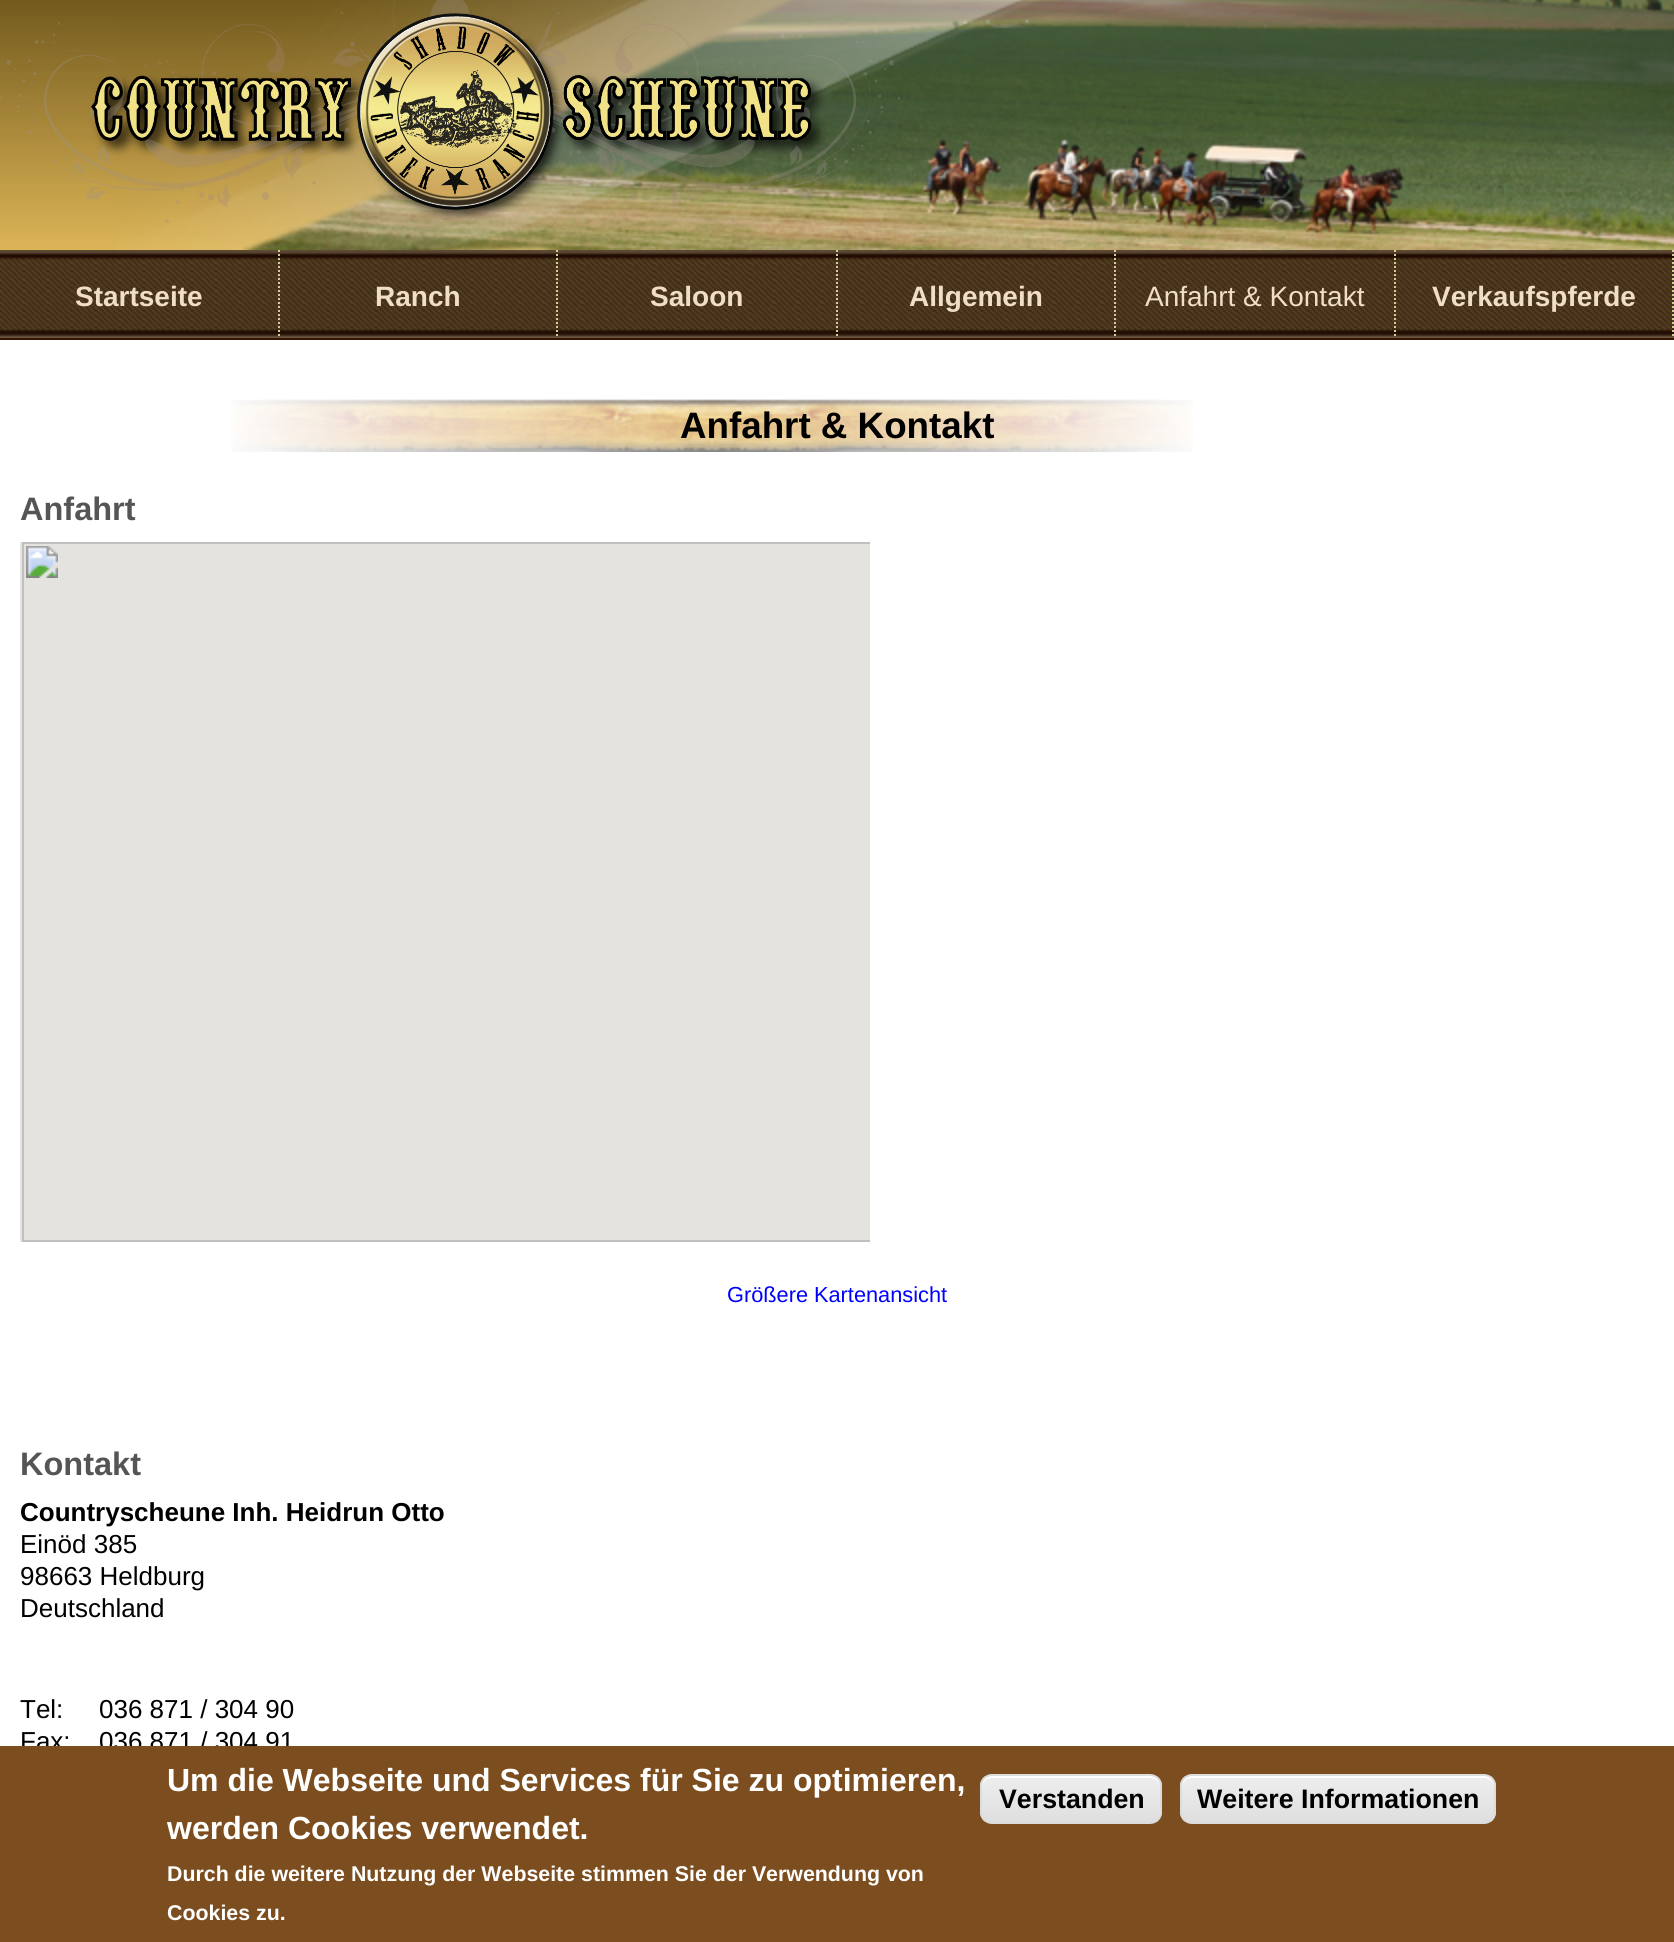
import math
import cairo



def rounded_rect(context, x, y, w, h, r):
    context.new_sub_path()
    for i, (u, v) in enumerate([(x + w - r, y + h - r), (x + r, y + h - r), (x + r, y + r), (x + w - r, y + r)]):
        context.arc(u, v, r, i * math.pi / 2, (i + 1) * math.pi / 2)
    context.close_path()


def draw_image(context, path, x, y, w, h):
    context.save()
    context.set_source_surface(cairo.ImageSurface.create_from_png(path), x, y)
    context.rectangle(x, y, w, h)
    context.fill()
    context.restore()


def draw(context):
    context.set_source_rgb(1, 1, 1)
    context.paint()
    draw_image(context, "images/1.png", 0, 0, 115, 250)
    draw_image(context, "images/2.png", 115, 0, 1559, 250)
    draw_image(context, "images/3.png", 0, 0, 900, 224)
    context.set_source_rgb(33 / 255, 12 / 255, 2 / 255)
    context.rectangle(0, 250, 1674, 88)
    context.fill()
    draw_image(context, "images/4.png", 0, 250, 280, 88)
    context.new_path()
    context.move_to(279, 250)
    context.line_to(279, 340)
    context.set_source_rgb(212 / 255, 204 / 255, 157 / 255)
    context.set_dash([2, 2])
    context.stroke()
    context.set_source_rgb(56 / 255, 19 / 255, 1 / 255)
    context.rectangle(0, 338, 280, 2)
    context.fill()
    draw_image(context, "images/5.png", 280, 250, 278, 88)
    context.new_path()
    context.move_to(557, 250)
    context.line_to(557, 340)
    context.set_source_rgb(212 / 255, 204 / 255, 157 / 255)
    context.stroke()
    context.set_source_rgb(56 / 255, 19 / 255, 1 / 255)
    context.rectangle(280, 338, 278, 2)
    context.fill()
    draw_image(context, "images/4.png", 558, 250, 280, 88)
    context.new_path()
    context.move_to(837, 250)
    context.line_to(837, 340)
    context.set_source_rgb(212 / 255, 204 / 255, 157 / 255)
    context.stroke()
    context.set_source_rgb(56 / 255, 19 / 255, 1 / 255)
    context.rectangle(558, 338, 280, 2)
    context.fill()
    draw_image(context, "images/5.png", 838, 250, 278, 88)
    context.new_path()
    context.move_to(1115, 250)
    context.line_to(1115, 340)
    context.set_source_rgb(212 / 255, 204 / 255, 157 / 255)
    context.stroke()
    context.set_source_rgb(56 / 255, 19 / 255, 1 / 255)
    context.rectangle(838, 338, 278, 2)
    context.fill()
    draw_image(context, "images/4.png", 1116, 250, 280, 88)
    context.new_path()
    context.move_to(1395, 250)
    context.line_to(1395, 340)
    context.set_source_rgb(212 / 255, 204 / 255, 157 / 255)
    context.stroke()
    context.set_source_rgb(56 / 255, 19 / 255, 1 / 255)
    context.rectangle(1116, 338, 280, 2)
    context.fill()
    draw_image(context, "images/5.png", 1396, 250, 278, 88)
    context.new_path()
    context.move_to(1673, 250)
    context.line_to(1673, 340)
    context.set_source_rgb(212 / 255, 204 / 255, 157 / 255)
    context.stroke()
    context.set_source_rgb(56 / 255, 19 / 255, 1 / 255)
    context.rectangle(1396, 338, 278, 2)
    context.fill()
    draw_image(context, "images/6.png", 231, 399, 962, 53)
    draw_image(context, "images/7.png", 20, 542, 850, 700)
    context.select_font_face("Liberation Sans", cairo.FontSlant.NORMAL, cairo.FontWeight.BOLD)
    context.set_font_size(28)
    context.set_source_rgb(241 / 255, 222 / 255, 198 / 255)
    context.move_to(75, 306)
    context.show_text("Startseite")
    context.move_to(375, 306)
    context.show_text("Ranch")
    context.move_to(650, 306)
    context.show_text("Saloon")
    context.move_to(909, 306)
    context.show_text("Allgemein")
    context.select_font_face("Liberation Sans")
    context.move_to(1145, 306)
    context.show_text("Anfahrt & Kontakt")
    context.select_font_face("Liberation Sans", cairo.FontSlant.NORMAL, cairo.FontWeight.BOLD)
    context.move_to(1432, 306)
    context.show_text("Verkaufspferde")
    context.set_font_size(36.75)
    context.set_source_rgb(0, 0, 0)
    context.move_to(680, 438)
    context.show_text("Anfahrt & Kontakt")
    context.set_font_size(32.5)
    context.set_source_rgb(85 / 255, 85 / 255, 85 / 255)
    context.move_to(20, 520)
    context.show_text("Anfahrt")
    context.select_font_face("Liberation Sans")
    context.set_font_size(21.75)
    context.set_source_rgb(0, 0, 1)
    context.move_to(727, 1302)
    context.show_text("Größere Kartenansicht")
    context.select_font_face("Liberation Sans", cairo.FontSlant.NORMAL, cairo.FontWeight.BOLD)
    context.set_font_size(32.5)
    context.set_source_rgb(85 / 255, 85 / 255, 85 / 255)
    context.move_to(20, 1475)
    context.show_text("Kontakt")
    context.set_font_size(26)
    context.set_source_rgb(0, 0, 0)
    context.move_to(20, 1521)
    context.show_text("Countryscheune Inh. Heidrun Otto")
    context.select_font_face("Liberation Sans")
    context.move_to(20, 1553)
    context.show_text("Einöd 385")
    context.move_to(20, 1585)
    context.show_text("98663 Heldburg")
    context.move_to(20, 1617)
    context.show_text("Deutschland")
    context.move_to(20, 1718)
    context.show_text("Tel:")
    context.move_to(20, 1750)
    context.show_text("Fax:")
    context.move_to(99, 1718)
    context.show_text("036 871 / 304 90")
    context.move_to(99, 1750)
    context.show_text("036 871 / 304 91")
    context.set_source_rgb(124 / 255, 78 / 255, 31 / 255)
    context.rectangle(0, 1746, 1674, 196)
    context.fill()
    context.select_font_face("Liberation Sans", cairo.FontSlant.NORMAL, cairo.FontWeight.BOLD)
    context.set_font_size(32)
    context.set_source_rgb(1, 1, 1)
    context.move_to(167, 1791)
    context.show_text("Um die Webseite und Services für Sie zu optimieren,")
    context.move_to(167, 1839)
    context.show_text("werden Cookies verwendet.")
    context.set_font_size(21.35)
    context.move_to(167, 1881)
    context.show_text("Durch die weitere Nutzung der Webseite stimmen Sie der Verwendung von")
    context.move_to(167, 1920)
    context.show_text("Cookies zu.")
    context.save()
    rounded_rect(context, 980, 1774, 182, 50, 12)
    context.clip()
    gradient = cairo.LinearGradient(1071, 1776, 1071, 1822)
    gradient.add_color_stop_rgba(0.05, 237 / 255, 237 / 255, 237 / 255, 1)
    gradient.add_color_stop_rgba(1, 223 / 255, 223 / 255, 223 / 255, 1)
    context.set_source(gradient)
    context.rectangle(980, 1776, 182, 46)
    context.fill()
    context.restore()
    context.new_path()
    context.move_to(992, 1778)
    context.line_to(1150, 1778)
    context.curve_to(1156, 1778, 1160, 1782, 1160, 1788)
    context.line_to(1160, 1786)
    context.curve_to(1160, 1780, 1156, 1776, 1150, 1776)
    context.line_to(992, 1776)
    context.curve_to(986, 1776, 982, 1780, 982, 1786)
    context.line_to(982, 1788)
    context.curve_to(982, 1782, 986, 1778, 992, 1778)
    context.close_path()
    context.fill()
    rounded_rect(context, 981, 1775, 180, 48, 11)
    context.set_source_rgb(220 / 255, 220 / 255, 220 / 255)
    context.set_dash([])
    context.stroke()
    context.set_font_size(26.75)
    context.set_source_rgb(0, 0, 0)
    context.move_to(999, 1808)
    context.show_text("Verstanden")
    context.save()
    rounded_rect(context, 1180, 1774, 316, 50, 12)
    context.clip()
    gradient = cairo.LinearGradient(1338, 1776, 1338, 1822)
    gradient.add_color_stop_rgba(0.05, 237 / 255, 237 / 255, 237 / 255, 1)
    gradient.add_color_stop_rgba(1, 223 / 255, 223 / 255, 223 / 255, 1)
    context.set_source(gradient)
    context.rectangle(1180, 1776, 316, 46)
    context.fill()
    context.restore()
    context.set_source_rgb(1, 1, 1)
    context.new_path()
    context.move_to(1192, 1778)
    context.line_to(1484, 1778)
    context.curve_to(1490, 1778, 1494, 1782, 1494, 1788)
    context.line_to(1494, 1786)
    context.curve_to(1494, 1780, 1490, 1776, 1484, 1776)
    context.line_to(1192, 1776)
    context.curve_to(1186, 1776, 1182, 1780, 1182, 1786)
    context.line_to(1182, 1788)
    context.curve_to(1182, 1782, 1186, 1778, 1192, 1778)
    context.close_path()
    context.fill()
    rounded_rect(context, 1181, 1775, 314, 48, 11)
    context.set_source_rgb(220 / 255, 220 / 255, 220 / 255)
    context.stroke()
    context.set_source_rgb(0, 0, 0)
    context.move_to(1197, 1808)
    context.show_text("Weitere Informationen")


surface = cairo.ImageSurface(cairo.Format.RGB24, 1674, 1942)
context = cairo.Context(surface)
options = cairo.FontOptions()
options.set_hint_metrics(cairo.HintMetrics.OFF)
options.set_hint_style(cairo.HintStyle.NONE)
context.set_font_options(options)
context.set_miter_limit(4)
draw(context)
surface.write_to_png("out.png")
